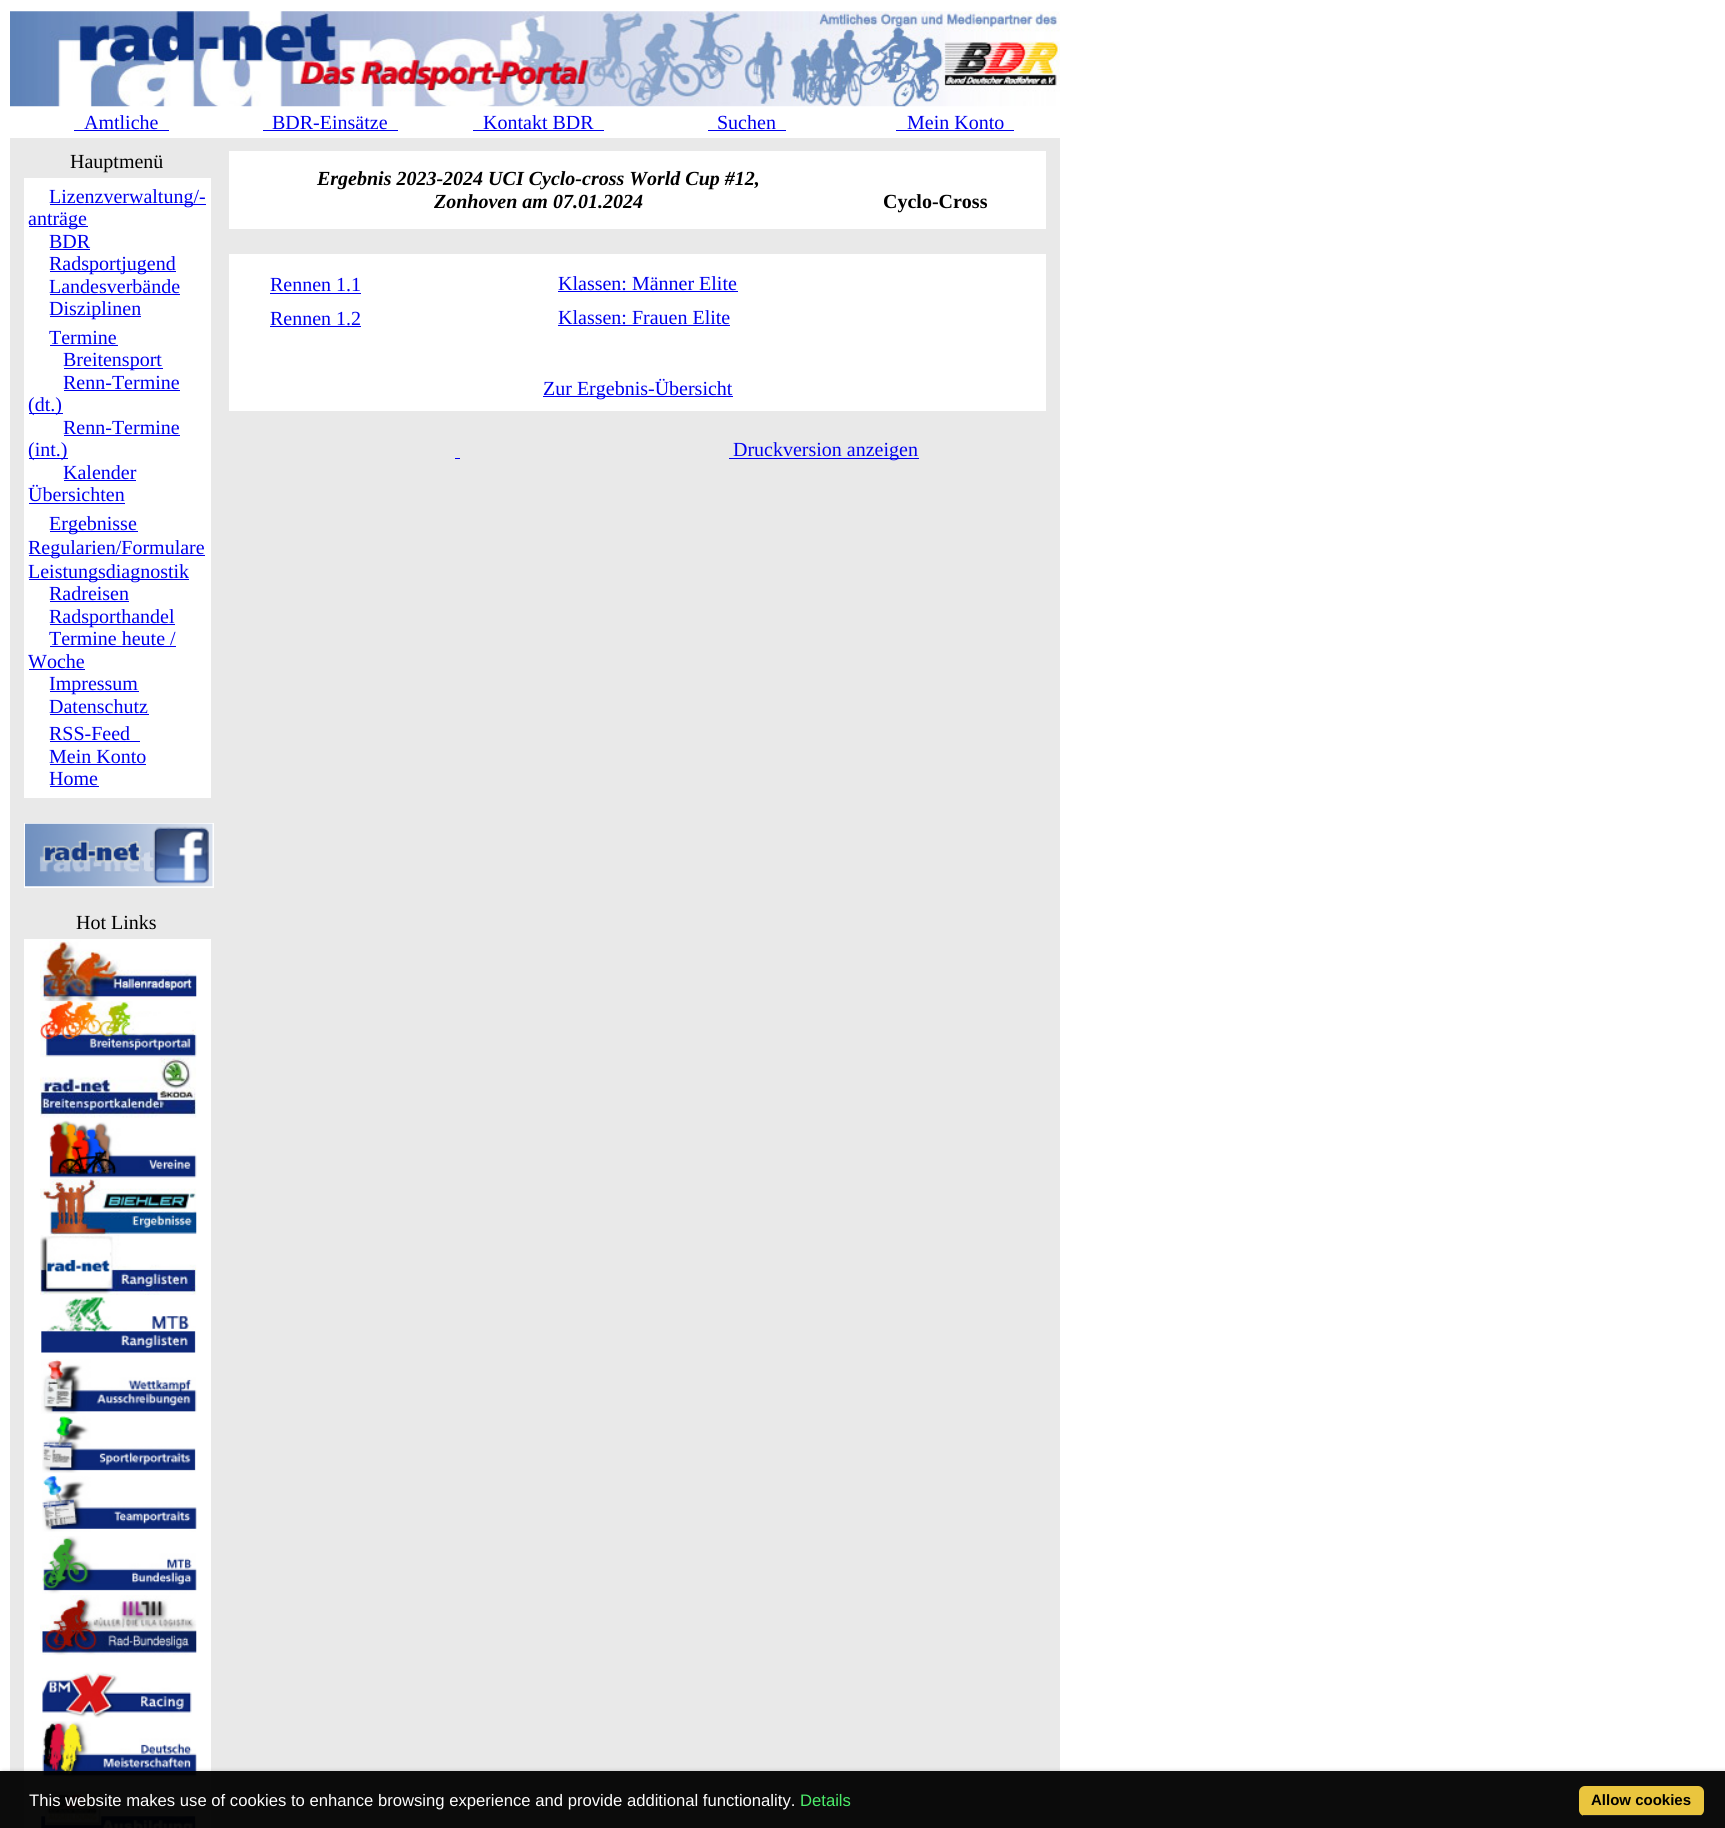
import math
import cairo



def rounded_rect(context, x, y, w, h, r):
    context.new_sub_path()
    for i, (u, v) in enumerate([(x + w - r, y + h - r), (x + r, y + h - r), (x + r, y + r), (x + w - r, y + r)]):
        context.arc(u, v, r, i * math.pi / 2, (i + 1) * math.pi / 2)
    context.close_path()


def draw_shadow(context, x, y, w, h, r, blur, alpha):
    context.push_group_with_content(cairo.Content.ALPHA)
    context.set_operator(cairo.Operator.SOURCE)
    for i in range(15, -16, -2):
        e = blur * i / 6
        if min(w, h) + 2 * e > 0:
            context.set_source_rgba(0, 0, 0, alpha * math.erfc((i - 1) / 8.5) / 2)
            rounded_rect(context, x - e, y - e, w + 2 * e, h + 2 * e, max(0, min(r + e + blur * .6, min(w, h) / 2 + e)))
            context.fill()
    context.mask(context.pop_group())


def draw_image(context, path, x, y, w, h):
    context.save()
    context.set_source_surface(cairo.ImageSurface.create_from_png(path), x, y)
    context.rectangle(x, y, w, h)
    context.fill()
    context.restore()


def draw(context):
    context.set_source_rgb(1, 1, 1)
    context.paint()
    draw_image(context, "images/1.png", 10, 11, 1050, 96)
    context.set_source_rgb(0, 0, 238 / 255)
    context.rectangle(74, 130, 95, 1)
    context.fill()
    context.rectangle(263, 130, 135, 1)
    context.fill()
    context.rectangle(473, 130, 131, 1)
    context.fill()
    context.rectangle(708, 130, 78, 1)
    context.fill()
    context.rectangle(896, 130, 118, 1)
    context.fill()
    context.set_source_rgb(233 / 255, 233 / 255, 233 / 255)
    context.rectangle(10, 138, 1050, 1690)
    context.fill()
    context.set_source_rgb(1, 1, 1)
    context.rectangle(24, 178, 187, 620)
    context.fill()
    context.set_source_rgb(0, 0, 238 / 255)
    context.rectangle(50, 204, 156, 1)
    context.fill()
    context.rectangle(29, 226, 59, 1)
    context.fill()
    context.rectangle(50, 249, 40, 1)
    context.fill()
    context.rectangle(50, 271, 126, 1)
    context.fill()
    context.rectangle(50, 294, 130, 1)
    context.fill()
    context.rectangle(50, 316, 91, 1)
    context.fill()
    context.rectangle(50, 345, 68, 1)
    context.fill()
    context.rectangle(64, 368, 99, 1)
    context.fill()
    context.rectangle(64, 390, 116, 1)
    context.fill()
    context.rectangle(29, 413, 34, 1)
    context.fill()
    context.rectangle(64, 435, 116, 1)
    context.fill()
    context.rectangle(29, 458, 39, 1)
    context.fill()
    context.rectangle(64, 480, 72, 1)
    context.fill()
    context.rectangle(29, 503, 96, 1)
    context.fill()
    context.rectangle(50, 531, 88, 1)
    context.fill()
    context.rectangle(29, 555, 176, 1)
    context.fill()
    context.rectangle(29, 579, 160, 1)
    context.fill()
    context.rectangle(50, 601, 79, 1)
    context.fill()
    context.rectangle(50, 624, 125, 1)
    context.fill()
    context.rectangle(50, 646, 126, 1)
    context.fill()
    context.rectangle(29, 669, 56, 1)
    context.fill()
    context.rectangle(50, 691, 89, 1)
    context.fill()
    context.rectangle(50, 714, 99, 1)
    context.fill()
    context.rectangle(50, 741, 90, 1)
    context.fill()
    context.rectangle(50, 764, 96, 1)
    context.fill()
    context.rectangle(50, 786, 49, 1)
    context.fill()
    context.set_source_rgb(1, 1, 1)
    context.rectangle(24, 823, 190, 65)
    context.fill()
    draw_image(context, "images/2.png", 25, 823, 188, 64)
    context.rectangle(24, 939, 187, 889)
    context.fill()
    draw_image(context, "images/3.png", 40, 940, 157, 62)
    draw_image(context, "images/4.png", 40, 1001, 157, 57)
    draw_image(context, "images/5.png", 40, 1057, 157, 61)
    draw_image(context, "images/6.png", 49, 1120, 148, 58)
    draw_image(context, "images/7.png", 40, 1178, 157, 57)
    draw_image(context, "images/8.png", 40, 1235, 157, 60)
    draw_image(context, "images/9.png", 41, 1297, 155, 56)
    draw_image(context, "images/10.png", 41, 1359, 156, 55)
    draw_image(context, "images/11.png", 42, 1416, 154, 57)
    draw_image(context, "images/12.png", 42, 1476, 155, 56)
    draw_image(context, "images/13.png", 42, 1536, 155, 58)
    draw_image(context, "images/14.png", 40, 1595, 157, 60)
    draw_image(context, "images/15.png", 42, 1672, 150, 46)
    draw_image(context, "images/16.png", 42, 1721, 155, 58)
    draw_image(context, "images/17.png", 41, 1791, 155, 37)
    context.rectangle(229, 151, 817, 78)
    context.fill()
    context.rectangle(229, 254, 817, 157)
    context.fill()
    context.set_source_rgb(0, 0, 238 / 255)
    context.rectangle(270, 293, 91, 1)
    context.fill()
    context.rectangle(558, 291, 180, 1)
    context.fill()
    context.rectangle(270, 326, 91, 1)
    context.fill()
    context.rectangle(558, 325, 172, 1)
    context.fill()
    context.rectangle(543, 396, 190, 1)
    context.fill()
    context.rectangle(455, 458, 5, 1)
    context.fill()
    context.rectangle(729, 458, 190, 1)
    context.fill()
    context.save()
    context.set_fill_rule(cairo.FillRule.EVEN_ODD)
    context.new_path()
    context.move_to(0, 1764)
    context.line_to(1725, 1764)
    context.line_to(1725, 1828)
    context.line_to(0, 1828)
    context.close_path()
    context.move_to(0, 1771)
    context.line_to(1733, 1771)
    context.line_to(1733, 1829)
    context.line_to(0, 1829)
    context.close_path()
    context.clip()
    context.set_source_rgb(0, 0, 0)
    draw_shadow(context, 3, 1774, 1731, 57, 0, 3, 0.6)
    context.restore()
    context.set_source_rgba(0, 0, 0, 0.95)
    context.rectangle(0, 1771, 1725, 57)
    context.fill()
    context.set_source_rgb(234 / 255, 197 / 255, 62 / 255)
    rounded_rect(context, 1579, 1786, 125, 30, 6)
    context.fill()
    context.set_source_rgb(34 / 255, 34 / 255, 34 / 255)
    context.rectangle(1583, 1815, 118, 1)
    context.fill()
    context.select_font_face("Liberation Serif")
    context.set_font_size(20)
    context.set_source_rgb(0, 0, 238 / 255)
    context.move_to(84, 129)
    context.show_text("Amtliche")
    context.move_to(272, 129)
    context.show_text("BDR-Einsätze")
    context.move_to(483, 129)
    context.show_text("Kontakt BDR")
    context.move_to(717, 129)
    context.show_text("Suchen")
    context.move_to(907, 129)
    context.show_text("Mein Konto")
    context.set_source_rgb(0, 0, 0)
    context.move_to(70, 168)
    context.show_text("Hauptmenü")
    context.set_source_rgb(0, 0, 238 / 255)
    context.move_to(49, 203)
    context.show_text("Lizenzverwaltung/-")
    context.move_to(28, 225)
    context.show_text("anträge")
    context.move_to(49, 248)
    context.show_text("BDR")
    context.move_to(49, 270)
    context.show_text("Radsportjugend")
    context.move_to(49, 293)
    context.show_text("Landesverbände")
    context.move_to(49, 315)
    context.show_text("Disziplinen")
    context.move_to(49, 344)
    context.show_text("Termine")
    context.move_to(63, 366)
    context.show_text("Breitensport")
    context.move_to(63, 389)
    context.show_text("Renn-Termine")
    context.move_to(28, 411)
    context.show_text("(dt.)")
    context.move_to(63, 434)
    context.show_text("Renn-Termine")
    context.move_to(28, 456)
    context.show_text("(int.)")
    context.move_to(63, 479)
    context.show_text("Kalender")
    context.move_to(28, 501)
    context.show_text("Übersichten")
    context.move_to(49, 530)
    context.show_text("Ergebnisse")
    context.move_to(28, 554)
    context.show_text("Regularien/Formulare")
    context.move_to(28, 578)
    context.show_text("Leistungsdiagnostik")
    context.move_to(49, 600)
    context.show_text("Radreisen")
    context.move_to(49, 623)
    context.show_text("Radsporthandel")
    context.move_to(49, 645)
    context.show_text("Termine heute /")
    context.move_to(28, 668)
    context.show_text("Woche")
    context.move_to(49, 690)
    context.show_text("Impressum")
    context.move_to(49, 713)
    context.show_text("Datenschutz")
    context.move_to(49, 740)
    context.show_text("RSS-Feed")
    context.move_to(49, 763)
    context.show_text("Mein Konto")
    context.move_to(49, 785)
    context.show_text("Home")
    context.set_source_rgb(0, 0, 0)
    context.move_to(76, 929)
    context.show_text("Hot Links")
    context.select_font_face("Liberation Serif", cairo.FontSlant.ITALIC, cairo.FontWeight.BOLD)
    context.move_to(317, 185)
    context.show_text("Ergebnis 2023-2024 UCI Cyclo-cross World Cup #12,")
    context.move_to(434, 208)
    context.show_text("Zonhoven am 07.01.2024")
    context.select_font_face("Liberation Serif", cairo.FontSlant.NORMAL, cairo.FontWeight.BOLD)
    context.move_to(883, 208)
    context.show_text("Cyclo-Cross")
    context.select_font_face("Liberation Serif")
    context.set_source_rgb(0, 0, 238 / 255)
    context.move_to(270, 291)
    context.show_text("Rennen 1.1")
    context.move_to(558, 290)
    context.show_text("Klassen: Männer Elite")
    context.move_to(270, 325)
    context.show_text("Rennen 1.2")
    context.move_to(558, 324)
    context.show_text("Klassen: Frauen Elite")
    context.move_to(543, 395)
    context.show_text("Zur Ergebnis-Übersicht")
    context.move_to(733, 456)
    context.show_text("Druckversion anzeigen")
    context.select_font_face("Liberation Sans")
    context.set_font_size(16.65)
    context.set_source_rgb(1, 1, 1)
    context.move_to(29, 1806)
    context.show_text("This website makes use of cookies to enhance browsing experience and provide additional functionality.")
    context.set_source_rgb(75 / 255, 236 / 255, 105 / 255)
    context.move_to(800, 1806)
    context.show_text("Details")
    context.select_font_face("Liberation Sans", cairo.FontSlant.NORMAL, cairo.FontWeight.BOLD)
    context.set_font_size(15)
    context.set_source_rgb(0, 0, 0)
    context.move_to(1591, 1805)
    context.show_text("Allow cookies")


surface = cairo.ImageSurface(cairo.Format.RGB24, 1725, 1828)
context = cairo.Context(surface)
options = cairo.FontOptions()
options.set_hint_metrics(cairo.HintMetrics.OFF)
options.set_hint_style(cairo.HintStyle.NONE)
context.set_font_options(options)
context.set_miter_limit(4)
draw(context)
surface.write_to_png("out.png")
